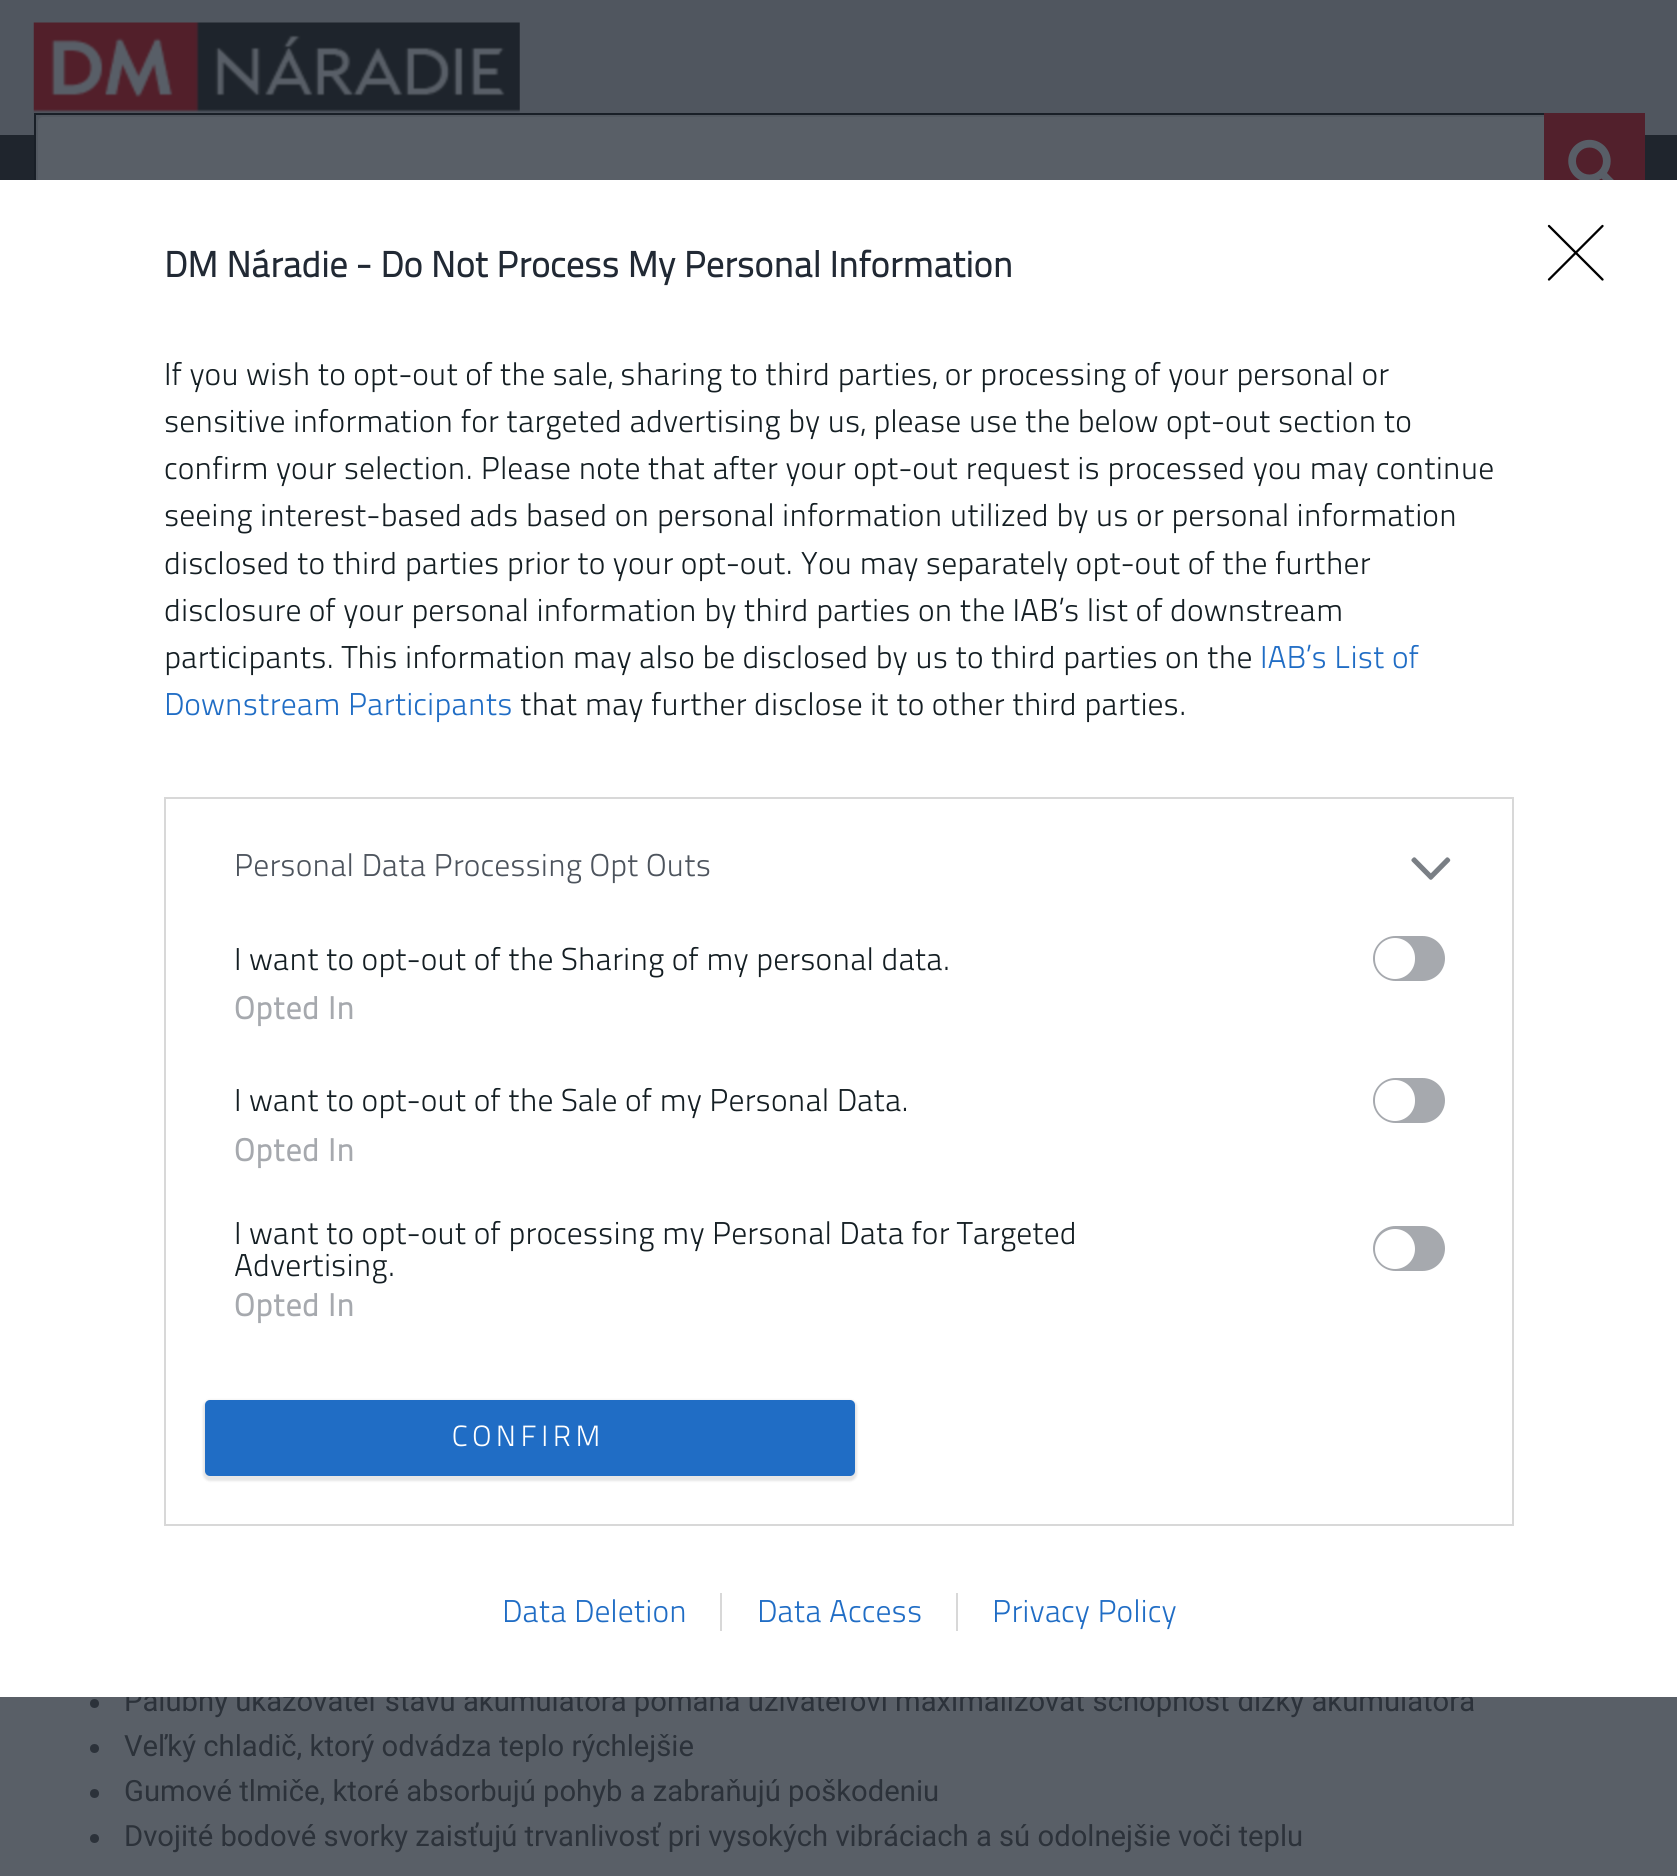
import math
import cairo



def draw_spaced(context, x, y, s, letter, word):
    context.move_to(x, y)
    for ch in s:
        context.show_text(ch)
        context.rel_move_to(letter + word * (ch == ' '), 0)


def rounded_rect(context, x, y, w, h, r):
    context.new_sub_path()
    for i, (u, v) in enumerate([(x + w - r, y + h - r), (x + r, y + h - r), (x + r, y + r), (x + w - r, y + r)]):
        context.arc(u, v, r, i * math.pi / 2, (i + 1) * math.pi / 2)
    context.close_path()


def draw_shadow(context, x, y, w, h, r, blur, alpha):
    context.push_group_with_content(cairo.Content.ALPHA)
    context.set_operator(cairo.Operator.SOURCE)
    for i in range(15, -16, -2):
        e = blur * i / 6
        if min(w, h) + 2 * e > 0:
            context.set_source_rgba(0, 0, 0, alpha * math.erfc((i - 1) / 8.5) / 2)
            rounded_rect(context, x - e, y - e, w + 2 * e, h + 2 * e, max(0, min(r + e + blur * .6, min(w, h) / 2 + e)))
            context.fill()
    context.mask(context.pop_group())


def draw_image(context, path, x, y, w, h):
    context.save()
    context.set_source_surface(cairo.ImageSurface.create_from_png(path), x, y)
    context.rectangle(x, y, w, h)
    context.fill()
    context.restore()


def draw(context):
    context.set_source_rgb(89 / 255, 95 / 255, 103 / 255)
    context.paint()
    context.set_source_rgb(80 / 255, 86 / 255, 95 / 255)
    context.rectangle(0, 0, 1677, 135)
    context.fill()
    draw_image(context, "images/1.png", 33, 22, 487, 91)
    context.set_source_rgb(31 / 255, 37 / 255, 45 / 255)
    context.rectangle(0, 135, 1677, 45)
    context.fill()
    context.rectangle(35, 114, 1609, 103)
    context.set_source_rgb(25 / 255, 31 / 255, 39 / 255)
    context.stroke()
    context.set_source_rgb(89 / 255, 95 / 255, 103 / 255)
    rounded_rect(context, 37, 116, 1605, 99, 6)
    context.fill_preserve()
    context.set_source_rgb(82 / 255, 88 / 255, 96 / 255)
    context.stroke()
    context.set_source_rgb(82 / 255, 32 / 255, 44 / 255)
    context.rectangle(1544, 113, 101, 67)
    context.fill()
    draw_image(context, "images/2.png", 1568, 139, 46, 41)
    context.set_source_rgb(44 / 255, 50 / 255, 58 / 255)
    context.arc(94.5, 1703.5, 4.5, 0, 2 * math.pi)
    context.fill()
    context.arc(94.5, 1748.5, 4.5, 0, 2 * math.pi)
    context.fill()
    context.arc(94.5, 1793.5, 4.5, 0, 2 * math.pi)
    context.fill()
    context.arc(94.5, 1838.5, 4.5, 0, 2 * math.pi)
    context.fill()
    context.select_font_face("Roboto")
    context.set_font_size(29.25)
    context.move_to(124, 1711)
    context.show_text("Palubný ukazovateľ stavu akumulátora pomáha uživateľovi maximalizovať schopnosť dĺžky akumulátora")
    context.set_source_rgb(1, 1, 1)
    context.rectangle(0, 180, 1677, 1517)
    context.fill()
    context.rectangle(165, 798, 1348, 727)
    context.set_source_rgb(216 / 255, 216 / 255, 216 / 255)
    context.stroke()
    context.set_source_rgb(166 / 255, 169 / 255, 174 / 255)
    rounded_rect(context, 1374, 1227, 70, 43, 21.5)
    context.fill_preserve()
    context.stroke()
    context.set_source_rgb(1, 1, 1)
    context.arc(1395, 1249, 20, 0, 2 * math.pi)
    context.fill()
    context.set_source_rgb(166 / 255, 169 / 255, 174 / 255)
    rounded_rect(context, 1374, 1079, 70, 43, 21.5)
    context.fill_preserve()
    context.stroke()
    context.set_source_rgb(1, 1, 1)
    rounded_rect(context, 1375, 1080, 40, 41, 20)
    context.fill()
    context.set_source_rgb(166 / 255, 169 / 255, 174 / 255)
    rounded_rect(context, 1374, 937, 70, 43, 21.5)
    context.fill_preserve()
    context.stroke()
    context.set_source_rgb(1, 1, 1)
    rounded_rect(context, 1375, 938, 40, 41, 20)
    context.fill()
    draw_image(context, "images/3.png", 1411, 857, 40, 23)
    context.new_path()
    context.move_to(1549, 226)
    context.line_to(1602.5, 279.5)
    context.move_to(1602.5, 226)
    context.line_to(1549, 279.5)
    context.set_source_rgb(0, 0, 0)
    context.set_line_width(2.3)
    context.set_line_cap(cairo.LineCap.ROUND)
    context.set_line_join(cairo.LineJoin.ROUND)
    context.stroke()
    context.set_source_rgb(0, 0, 0)
    draw_shadow(context, 203, 1400, 654, 81, 7, 1, 0.1)
    context.set_source_rgb(32 / 255, 109 / 255, 197 / 255)
    rounded_rect(context, 205, 1400, 650, 76, 5)
    context.fill()
    context.select_font_face("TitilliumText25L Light")
    context.set_source_rgb(1, 1, 1)
    draw_spaced(context, 452, 1446, "CONFIRM", 4.5, 0)
    context.select_font_face("TitilliumText25L", cairo.FontSlant.NORMAL, cairo.FontWeight.BOLD)
    context.set_font_size(31.5)
    context.set_source_rgb(166 / 255, 169 / 255, 174 / 255)
    draw_spaced(context, 234, 1316, "Opted In", 0.75, 0)
    context.select_font_face("TitilliumText25L Light")
    context.set_source_rgb(20 / 255, 30 / 255, 35 / 255)
    context.move_to(234, 1276)
    context.show_text("Advertising.")
    context.move_to(234, 1244)
    context.show_text("I want to opt-out of processing my Personal Data for Targeted")
    context.select_font_face("TitilliumText25L", cairo.FontSlant.NORMAL, cairo.FontWeight.BOLD)
    context.set_source_rgb(166 / 255, 169 / 255, 174 / 255)
    draw_spaced(context, 234, 1161, "Opted In", 0.75, 0)
    context.select_font_face("TitilliumText25L Light")
    context.set_source_rgb(20 / 255, 30 / 255, 35 / 255)
    context.move_to(234, 1111)
    context.show_text("I want to opt-out of the Sale of my Personal Data.")
    context.select_font_face("TitilliumText25L", cairo.FontSlant.NORMAL, cairo.FontWeight.BOLD)
    context.set_source_rgb(166 / 255, 169 / 255, 174 / 255)
    draw_spaced(context, 234, 1019, "Opted In", 0.75, 0)
    context.select_font_face("TitilliumText25L Light")
    context.set_source_rgb(20 / 255, 30 / 255, 35 / 255)
    context.move_to(234, 970)
    context.show_text("I want to opt-out of the Sharing of my personal data.")
    context.set_source_rgb(77 / 255, 84 / 255, 93 / 255)
    context.move_to(234, 876)
    context.show_text("Personal Data Processing Opt Outs")
    context.set_source_rgb(20 / 255, 30 / 255, 35 / 255)
    context.move_to(520, 715)
    context.show_text("that may further disclose it to other third parties.")
    context.set_source_rgb(32 / 255, 109 / 255, 197 / 255)
    context.move_to(164, 715)
    context.show_text("Downstream Participants")
    context.move_to(1260, 668)
    context.show_text("IAB’s List of")
    context.set_source_rgb(20 / 255, 30 / 255, 35 / 255)
    context.move_to(164, 668)
    context.show_text("participants. This information may also be disclosed by us to third parties on the")
    context.move_to(164, 621)
    context.show_text("disclosure of your personal information by third parties on the IAB’s list of downstream")
    context.move_to(164, 574)
    context.show_text("disclosed to third parties prior to your opt-out. You may separately opt-out of the further")
    context.move_to(164, 526)
    context.show_text("seeing interest-based ads based on personal information utilized by us or personal information")
    context.move_to(164, 479)
    context.show_text("confirm your selection. Please note that after your opt-out request is processed you may continue")
    context.move_to(164, 432)
    context.show_text("sensitive information for targeted advertising by us, please use the below opt-out section to")
    context.move_to(164, 385)
    context.show_text("If you wish to opt-out of the sale, sharing to third parties, or processing of your personal or")
    context.set_source_rgb(32 / 255, 109 / 255, 197 / 255)
    context.move_to(992, 1622)
    context.show_text("Privacy Policy")
    context.set_source_rgb(216 / 255, 216 / 255, 216 / 255)
    context.rectangle(956, 1593, 2, 38)
    context.fill()
    context.set_source_rgb(32 / 255, 109 / 255, 197 / 255)
    context.move_to(757, 1622)
    context.show_text("Data Access")
    context.set_source_rgb(216 / 255, 216 / 255, 216 / 255)
    context.rectangle(720, 1593, 2, 38)
    context.fill()
    context.set_source_rgb(32 / 255, 109 / 255, 197 / 255)
    context.move_to(502, 1622)
    context.show_text("Data Deletion")
    context.select_font_face("TitilliumText25L", cairo.FontSlant.NORMAL, cairo.FontWeight.BOLD)
    context.set_font_size(36)
    context.set_source_rgb(33 / 255, 41 / 255, 52 / 255)
    context.move_to(164, 277)
    context.show_text("DM Náradie - Do Not Process My Personal Information")
    context.select_font_face("Roboto")
    context.set_font_size(29.25)
    context.set_source_rgb(44 / 255, 50 / 255, 58 / 255)
    context.move_to(124, 1756)
    context.show_text("Veľký chladič, ktorý odvádza teplo rýchlejšie")
    context.move_to(124, 1801)
    context.show_text("Gumové tlmiče, ktoré absorbujú pohyb a zabraňujú poškodeniu")
    context.move_to(124, 1846)
    context.show_text("Dvojité bodové svorky zaisťujú trvanlivosť pri vysokých vibráciach a sú odolnejšie voči teplu")


surface = cairo.ImageSurface(cairo.Format.RGB24, 1677, 1876)
context = cairo.Context(surface)
options = cairo.FontOptions()
options.set_hint_metrics(cairo.HintMetrics.OFF)
options.set_hint_style(cairo.HintStyle.NONE)
context.set_font_options(options)
context.set_miter_limit(4)
draw(context)
surface.write_to_png("out.png")
